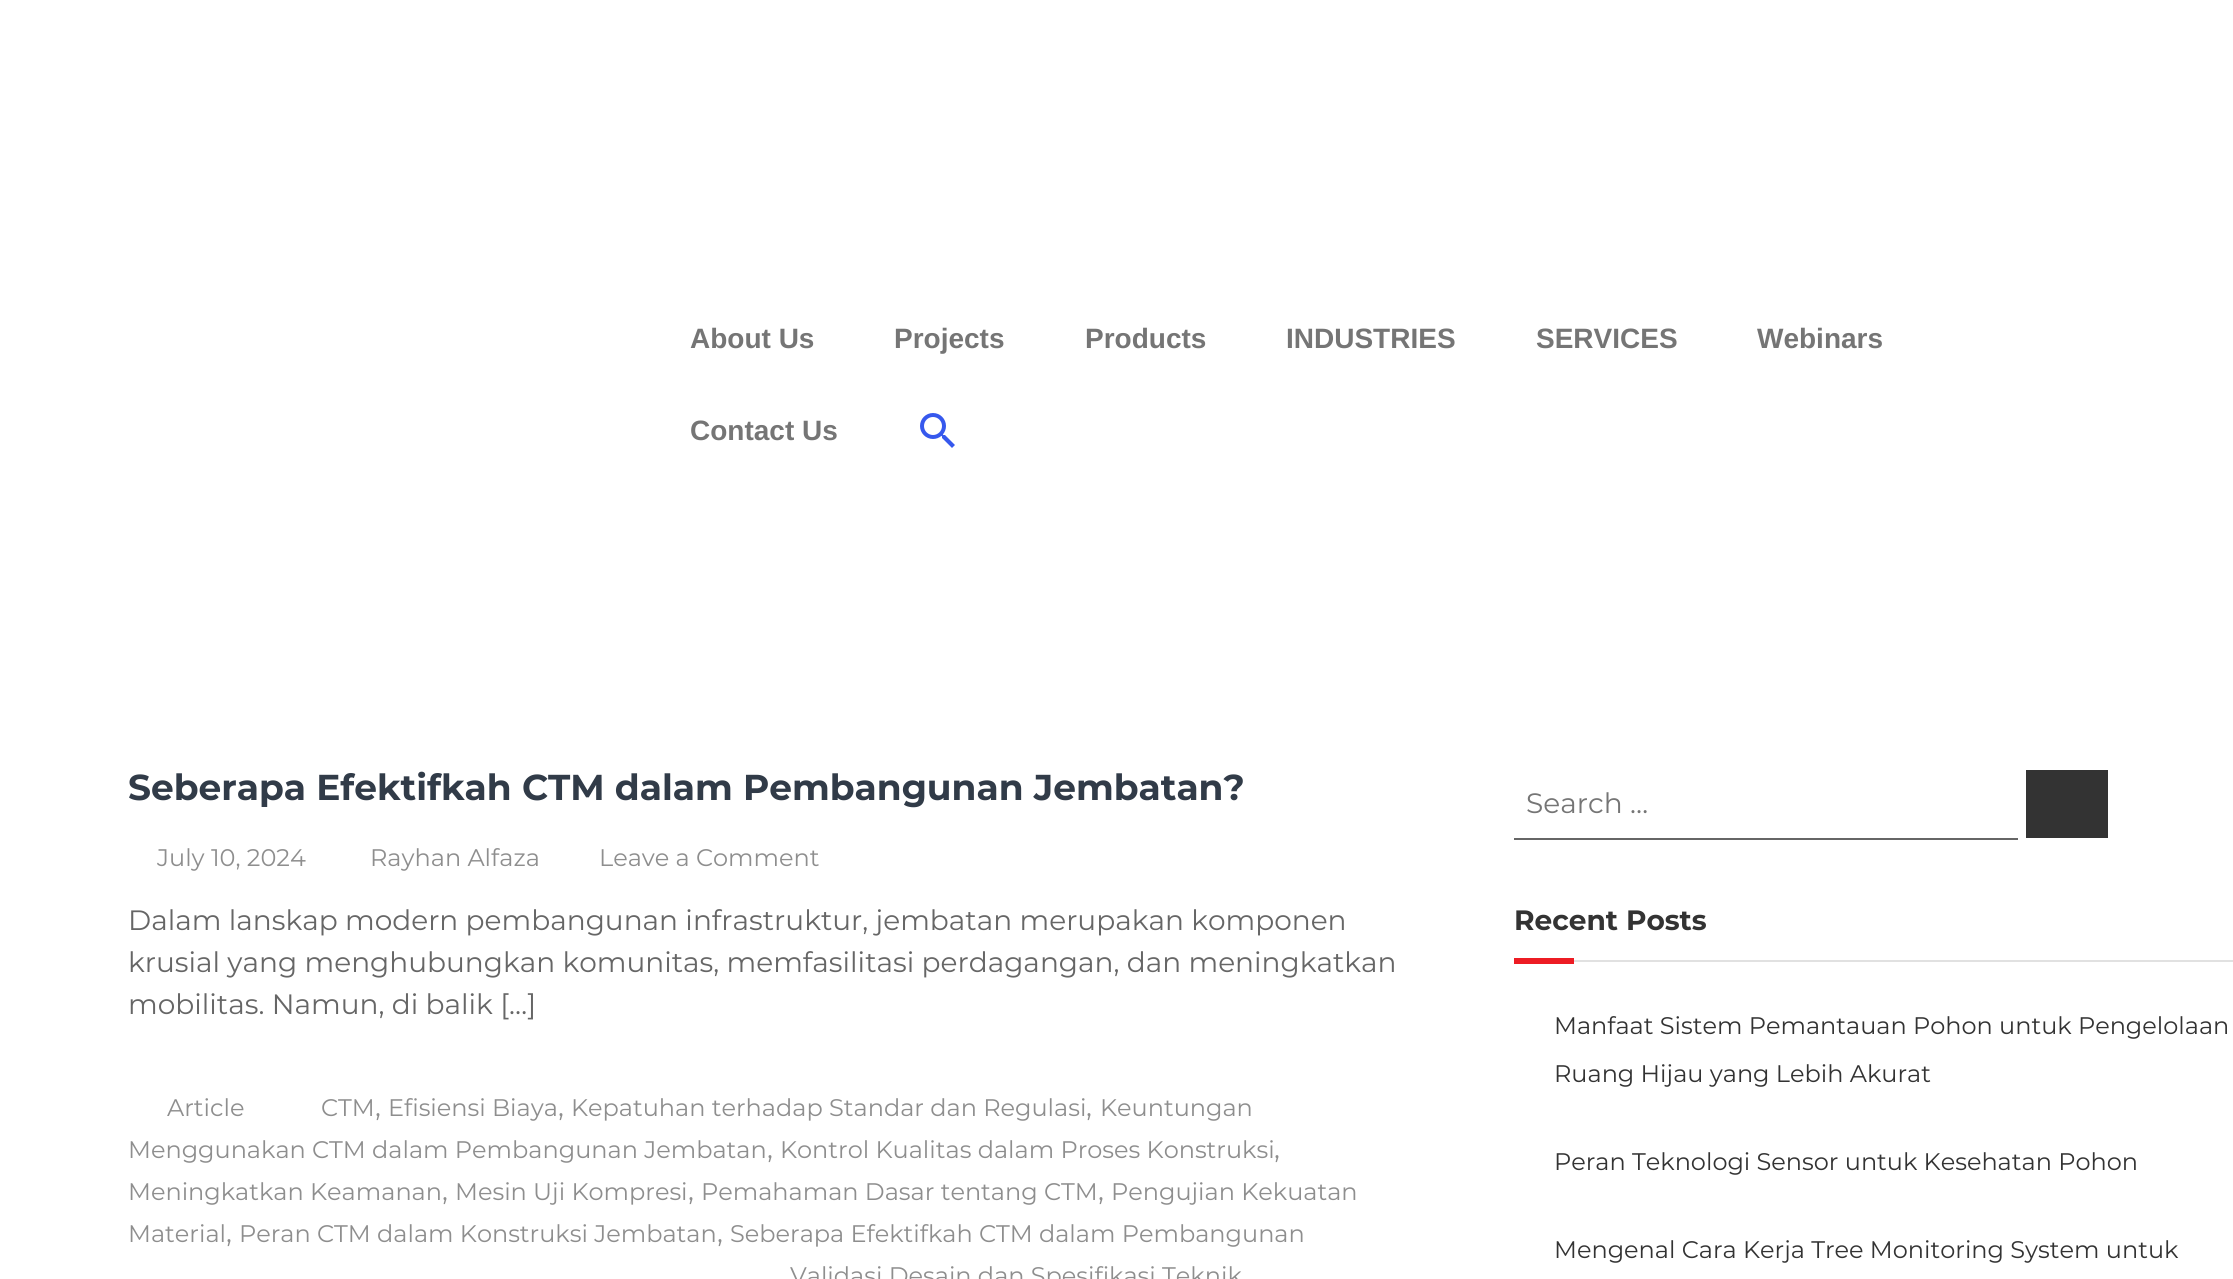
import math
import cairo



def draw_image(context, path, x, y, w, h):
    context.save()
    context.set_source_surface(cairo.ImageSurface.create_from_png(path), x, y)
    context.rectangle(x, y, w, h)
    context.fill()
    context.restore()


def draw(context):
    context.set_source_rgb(1, 1, 1)
    context.paint()
    draw_image(context, "images/1.png", 920, 413, 35, 35)
    context.set_source_rgb(102 / 255, 102 / 255, 102 / 255)
    context.rectangle(1514, 838, 504, 2)
    context.fill()
    context.set_source_rgb(51 / 255, 51 / 255, 51 / 255)
    context.rectangle(2026, 770, 82, 68)
    context.fill()
    context.set_source_rgb(237 / 255, 28 / 255, 36 / 255)
    context.rectangle(1514, 958, 60, 6)
    context.fill()
    context.set_source_rgb(225 / 255, 225 / 255, 225 / 255)
    context.rectangle(1574, 960, 659, 2)
    context.fill()
    context.select_font_face("Liberation Sans", cairo.FontSlant.NORMAL, cairo.FontWeight.BOLD)
    context.set_font_size(28)
    context.set_source_rgb(117 / 255, 117 / 255, 117 / 255)
    context.move_to(690, 348)
    context.show_text("About Us")
    context.move_to(894, 348)
    context.show_text("Projects")
    context.move_to(1085, 348)
    context.show_text("Products")
    context.move_to(1286, 348)
    context.show_text("INDUSTRIES")
    context.move_to(1536, 348)
    context.show_text("SERVICES")
    context.move_to(1757, 348)
    context.show_text("Webinars")
    context.move_to(690, 440)
    context.show_text("Contact Us")
    context.select_font_face("Montserrat", cairo.FontSlant.NORMAL, cairo.FontWeight.BOLD)
    context.set_font_size(36)
    context.set_source_rgb(49 / 255, 59 / 255, 72 / 255)
    context.move_to(128, 800)
    context.show_text("Seberapa Efektifkah CTM dalam Pembangunan Jembatan?")
    context.select_font_face("Montserrat")
    context.set_font_size(24)
    context.set_source_rgb(142 / 255, 142 / 255, 142 / 255)
    context.move_to(157, 866)
    context.show_text("July 10, 2024")
    context.move_to(370, 866)
    context.show_text("Rayhan Alfaza")
    context.move_to(599, 866)
    context.show_text("Leave a Comment")
    context.set_font_size(28)
    context.set_source_rgb(102 / 255, 102 / 255, 102 / 255)
    context.move_to(128, 930)
    context.show_text("Dalam lanskap modern pembangunan infrastruktur, jembatan merupakan komponen")
    context.move_to(128, 972)
    context.show_text("krusial yang menghubungkan komunitas, memfasilitasi perdagangan, dan meningkatkan")
    context.move_to(128, 1014)
    context.show_text("mobilitas. Namun, di balik […]")
    context.set_font_size(24)
    context.set_source_rgb(142 / 255, 142 / 255, 142 / 255)
    context.move_to(167, 1116)
    context.show_text("Article")
    context.move_to(321, 1116)
    context.show_text("CTM")
    context.set_font_size(28)
    context.move_to(375, 1116)
    context.show_text(",")
    context.set_font_size(24)
    context.move_to(388, 1116)
    context.show_text("Efisiensi Biaya")
    context.set_font_size(28)
    context.move_to(558, 1116)
    context.show_text(",")
    context.set_font_size(24)
    context.move_to(571, 1116)
    context.show_text("Kepatuhan terhadap Standar dan Regulasi")
    context.set_font_size(28)
    context.move_to(1086, 1116)
    context.show_text(",")
    context.set_font_size(24)
    context.move_to(1100, 1116)
    context.show_text("Keuntungan")
    context.move_to(128, 1158)
    context.show_text("Menggunakan CTM dalam Pembangunan Jembatan")
    context.set_font_size(28)
    context.move_to(767, 1158)
    context.show_text(",")
    context.set_font_size(24)
    context.move_to(780, 1158)
    context.show_text("Kontrol Kualitas dalam Proses Konstruksi")
    context.set_font_size(28)
    context.move_to(1274, 1158)
    context.show_text(",")
    context.set_font_size(24)
    context.move_to(128, 1200)
    context.show_text("Meningkatkan Keamanan")
    context.set_font_size(28)
    context.move_to(442, 1200)
    context.show_text(",")
    context.set_font_size(24)
    context.move_to(455, 1200)
    context.show_text("Mesin Uji Kompresi")
    context.set_font_size(28)
    context.move_to(688, 1200)
    context.show_text(",")
    context.set_font_size(24)
    context.move_to(701, 1200)
    context.show_text("Pemahaman Dasar tentang CTM")
    context.set_font_size(28)
    context.move_to(1098, 1200)
    context.show_text(",")
    context.set_font_size(24)
    context.move_to(1111, 1200)
    context.show_text("Pengujian Kekuatan")
    context.move_to(128, 1242)
    context.show_text("Material")
    context.set_font_size(28)
    context.move_to(226, 1242)
    context.show_text(",")
    context.set_font_size(24)
    context.move_to(239, 1242)
    context.show_text("Peran CTM dalam Konstruksi Jembatan")
    context.set_font_size(28)
    context.move_to(717, 1242)
    context.show_text(",")
    context.set_font_size(24)
    context.move_to(730, 1242)
    context.show_text("Seberapa Efektifkah CTM dalam Pembangunan")
    context.move_to(790, 1284)
    context.show_text("Validasi Desain dan Spesifikasi Teknik")
    context.set_font_size(28)
    context.set_source_rgb(117 / 255, 117 / 255, 117 / 255)
    context.move_to(1526, 813)
    context.show_text("Search …")
    context.select_font_face("Montserrat", cairo.FontSlant.NORMAL, cairo.FontWeight.BOLD)
    context.set_source_rgb(51 / 255, 51 / 255, 51 / 255)
    context.move_to(1514, 930)
    context.show_text("Recent Posts")
    context.select_font_face("Montserrat")
    context.set_font_size(24)
    context.move_to(1554, 1034)
    context.show_text("Manfaat Sistem Pemantauan Pohon untuk Pengelolaan")
    context.move_to(1554, 1082)
    context.show_text("Ruang Hijau yang Lebih Akurat")
    context.move_to(1554, 1170)
    context.show_text("Peran Teknologi Sensor untuk Kesehatan Pohon")
    context.move_to(1554, 1258)
    context.show_text("Mengenal Cara Kerja Tree Monitoring System untuk")


surface = cairo.ImageSurface(cairo.Format.RGB24, 2233, 1279)
context = cairo.Context(surface)
options = cairo.FontOptions()
options.set_hint_metrics(cairo.HintMetrics.OFF)
options.set_hint_style(cairo.HintStyle.NONE)
context.set_font_options(options)
context.set_miter_limit(4)
draw(context)
surface.write_to_png("out.png")
